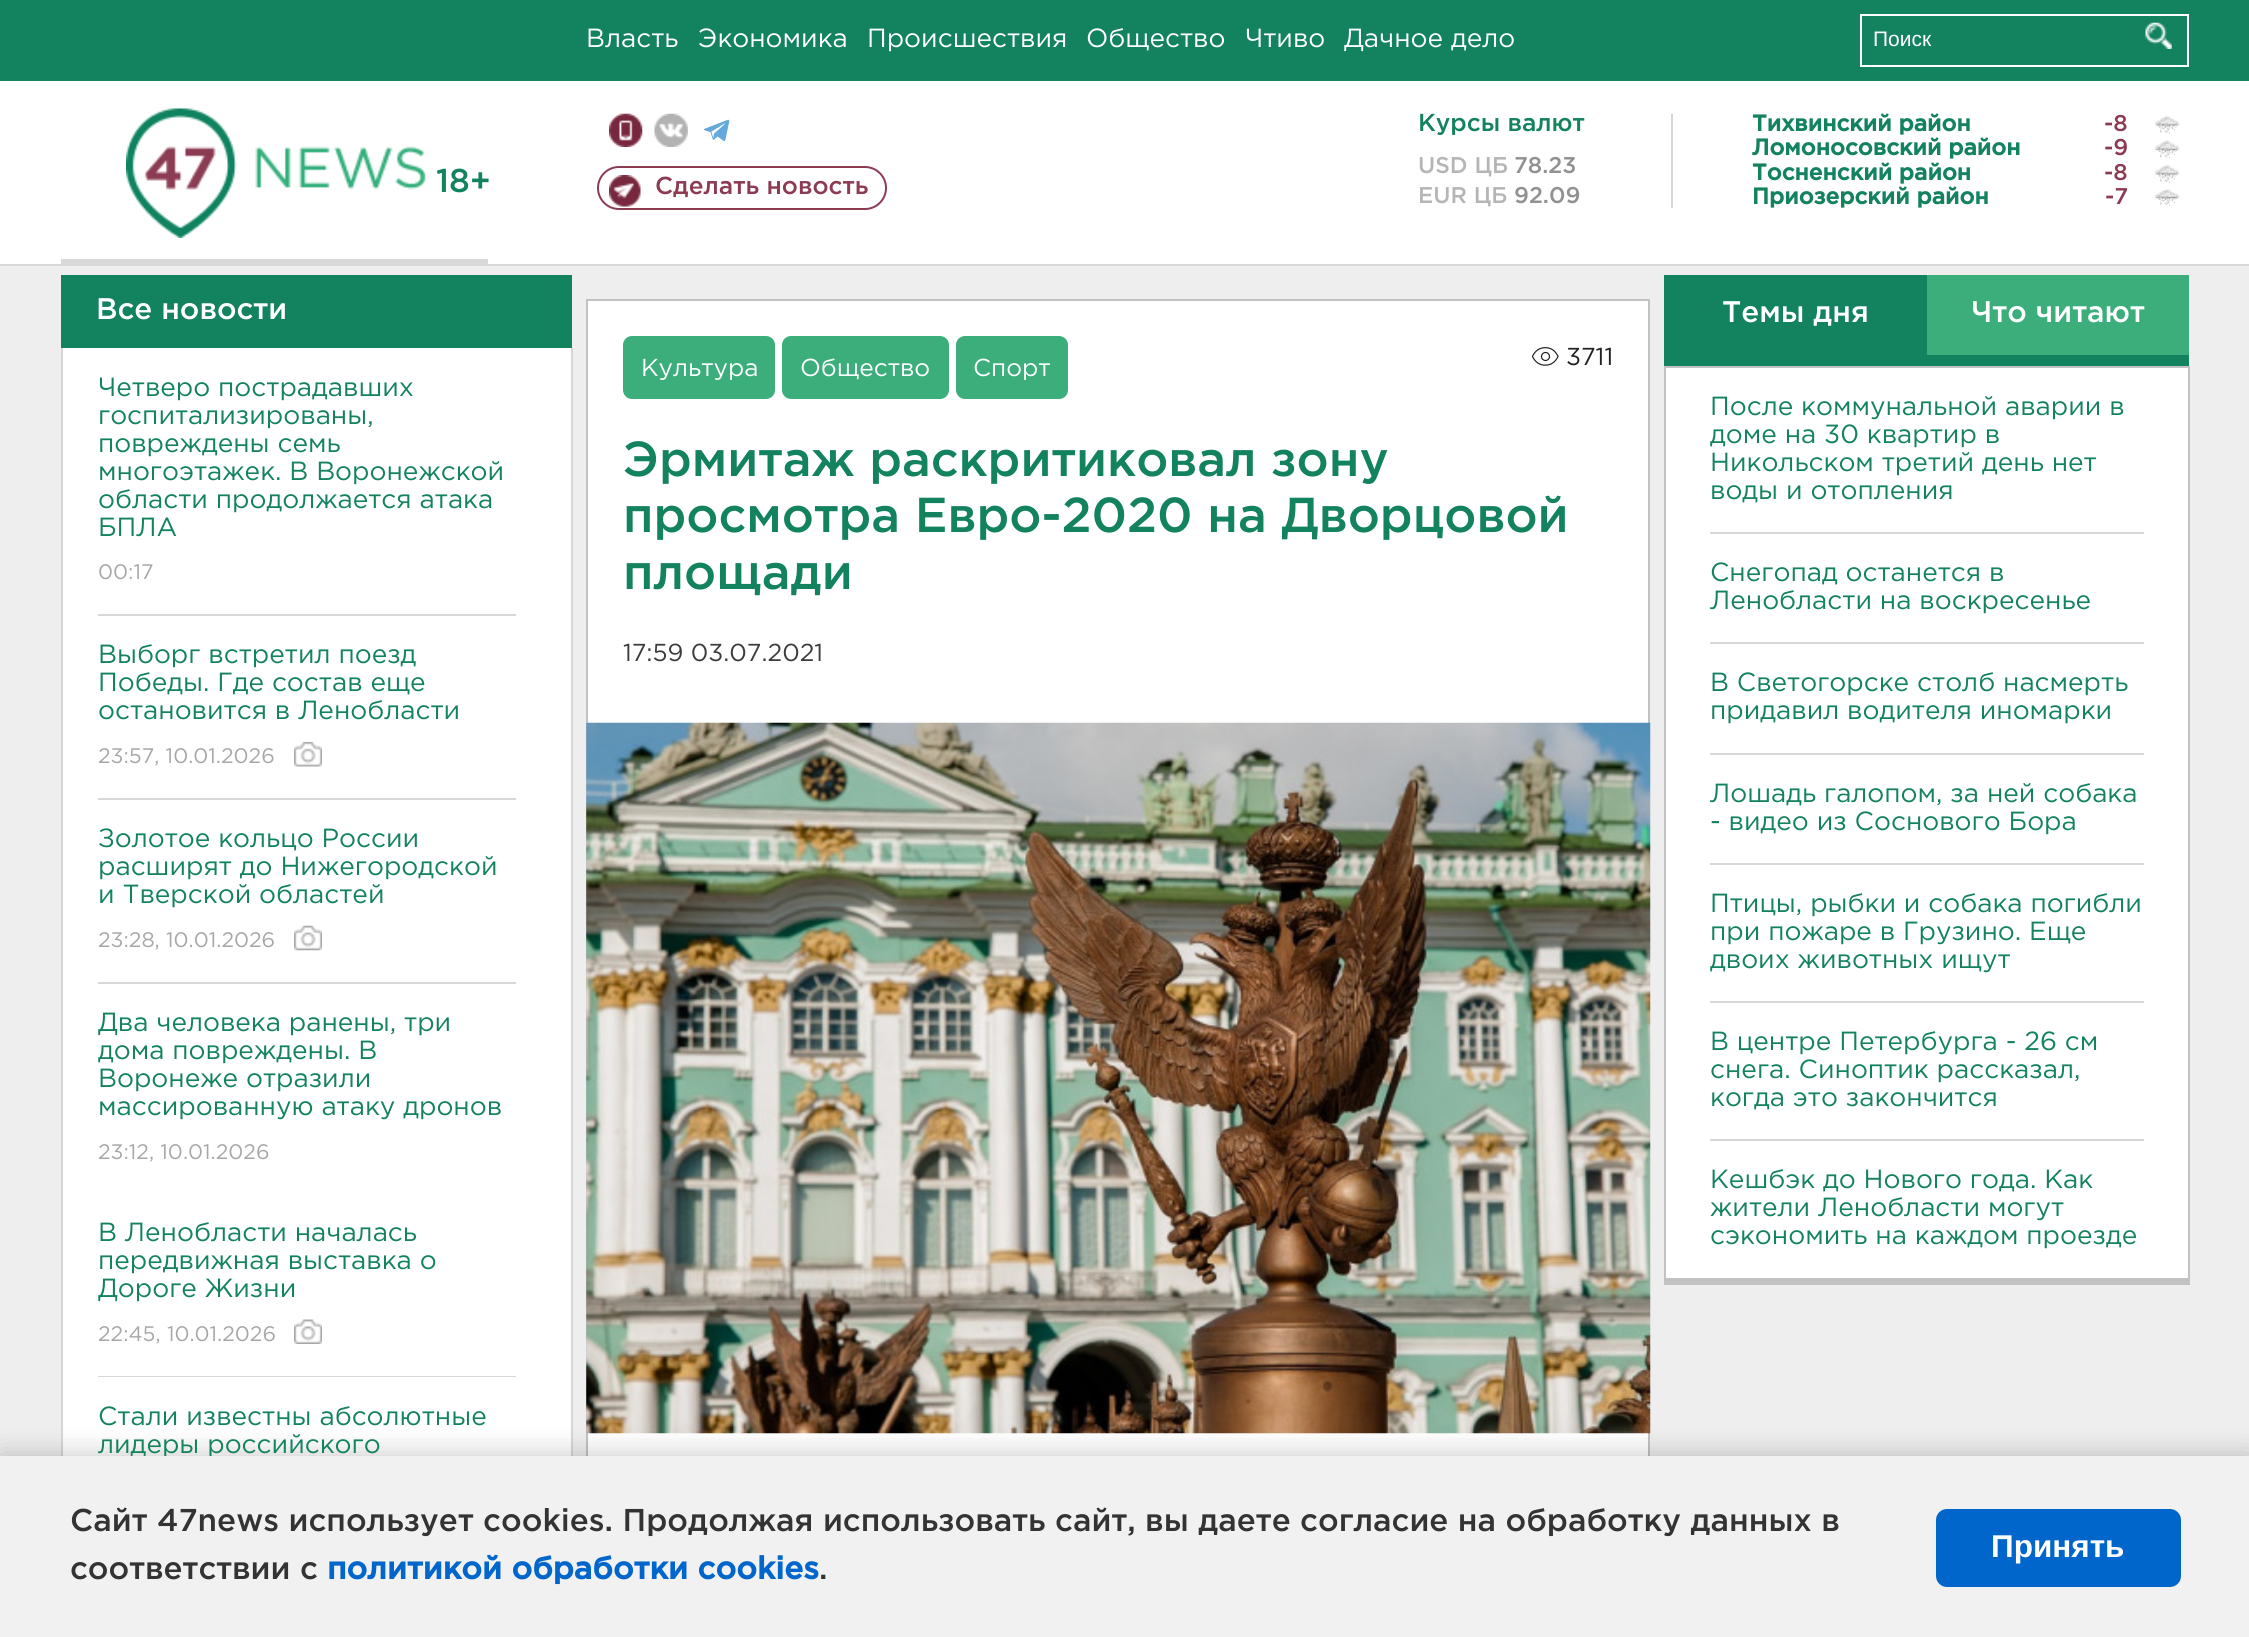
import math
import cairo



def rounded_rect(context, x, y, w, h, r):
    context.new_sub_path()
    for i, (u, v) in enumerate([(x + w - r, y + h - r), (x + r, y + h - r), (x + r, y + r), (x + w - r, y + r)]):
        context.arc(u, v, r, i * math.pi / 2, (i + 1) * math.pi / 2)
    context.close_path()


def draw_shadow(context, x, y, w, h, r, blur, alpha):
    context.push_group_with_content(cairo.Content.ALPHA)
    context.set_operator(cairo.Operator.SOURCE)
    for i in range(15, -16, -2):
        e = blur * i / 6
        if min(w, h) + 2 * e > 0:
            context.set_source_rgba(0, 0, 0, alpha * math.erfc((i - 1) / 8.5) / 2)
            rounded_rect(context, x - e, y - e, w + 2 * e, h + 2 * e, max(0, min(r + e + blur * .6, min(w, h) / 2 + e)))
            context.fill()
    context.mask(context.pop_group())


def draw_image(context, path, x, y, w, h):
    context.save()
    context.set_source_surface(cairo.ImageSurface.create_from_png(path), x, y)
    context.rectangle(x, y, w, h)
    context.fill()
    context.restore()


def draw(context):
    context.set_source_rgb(238 / 255, 238 / 255, 238 / 255)
    context.paint()
    context.set_source_rgb(19 / 255, 130 / 255, 95 / 255)
    context.rectangle(0, 0, 2249, 81)
    context.fill()
    context.rectangle(1861, 15, 327, 51)
    context.set_source_rgb(1, 1, 1)
    context.stroke()
    draw_image(context, "images/1.png", 2145, 22, 27, 27)
    context.rectangle(0, 81, 2249, 183)
    context.fill()
    context.set_source_rgb(218 / 255, 217 / 255, 217 / 255)
    context.rectangle(0, 264, 2249, 2)
    context.fill()
    context.rectangle(61, 259, 427, 5)
    context.fill()
    draw_image(context, "images/2.png", 126, 108, 300, 130)
    context.set_source_rgb(214 / 255, 214 / 255, 214 / 255)
    context.rectangle(1671, 114, 2, 94)
    context.fill()
    draw_image(context, "images/3.png", 2155, 115, 25, 19)
    draw_image(context, "images/4.png", 2155, 140, 25, 19)
    draw_image(context, "images/3.png", 2155, 164, 25, 19)
    draw_image(context, "images/5.png", 2155, 189, 25, 17)
    draw_image(context, "images/6.png", 609, 113, 34, 34)
    draw_image(context, "images/7.png", 654, 113, 34, 34)
    draw_image(context, "images/8.png", 704, 119, 26, 22)
    draw_image(context, "images/9.png", 609, 175, 32, 32)
    rounded_rect(context, 598, 167, 288, 42, 21)
    context.set_source_rgb(140 / 255, 59 / 255, 82 / 255)
    context.stroke()
    context.set_source_rgb(19 / 255, 130 / 255, 95 / 255)
    context.rectangle(61, 275, 511, 73)
    context.fill()
    context.set_source_rgb(1, 1, 1)
    context.rectangle(63, 348, 508, 1108)
    context.fill()
    context.set_source_rgb(214 / 255, 214 / 255, 214 / 255)
    context.rectangle(571, 348, 2, 1108)
    context.fill()
    context.rectangle(61, 348, 2, 1108)
    context.fill()
    context.set_source_rgb(216 / 255, 216 / 255, 216 / 255)
    context.rectangle(98, 614, 418, 2)
    context.fill()
    context.rectangle(98, 798, 418, 2)
    context.fill()
    draw_image(context, "images/10.png", 294, 742, 28, 25)
    context.rectangle(98, 982, 418, 2)
    context.fill()
    draw_image(context, "images/11.png", 294, 925, 28, 26)
    context.rectangle(98, 1376, 418, 1)
    context.fill()
    draw_image(context, "images/12.png", 294, 1319, 28, 25)
    context.set_source_rgb(1, 1, 1)
    context.rectangle(588, 301, 1060, 1155)
    context.fill()
    context.rectangle(587, 300, 1062, 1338)
    context.set_source_rgb(194 / 255, 194 / 255, 194 / 255)
    context.stroke()
    context.set_source_rgb(59 / 255, 174 / 255, 124 / 255)
    rounded_rect(context, 623, 336, 152, 63, 9)
    context.fill()
    rounded_rect(context, 782, 336, 167, 63, 9)
    context.fill()
    rounded_rect(context, 956, 336, 112, 63, 9)
    context.fill()
    draw_image(context, "images/13.png", 1531, 347, 28, 19)
    draw_image(context, "images/14.png", 586, 722, 1065, 712)
    context.set_source_rgb(19 / 255, 130 / 255, 95 / 255)
    context.rectangle(1664, 275, 525, 91)
    context.fill()
    context.set_source_rgb(59 / 255, 174 / 255, 124 / 255)
    context.rectangle(1927, 275, 262, 80)
    context.fill()
    context.set_source_rgb(1, 1, 1)
    context.rectangle(1666, 368, 522, 910)
    context.fill()
    context.set_source_rgb(194 / 255, 194 / 255, 194 / 255)
    context.rectangle(1664, 366, 525, 2)
    context.fill()
    context.rectangle(2188, 366, 2, 919)
    context.fill()
    context.rectangle(1664, 1278, 525, 7)
    context.fill()
    context.rectangle(1664, 366, 2, 919)
    context.fill()
    context.set_source_rgb(216 / 255, 216 / 255, 216 / 255)
    context.rectangle(1710, 532, 434, 2)
    context.fill()
    context.rectangle(1710, 642, 434, 2)
    context.fill()
    context.rectangle(1710, 753, 434, 2)
    context.fill()
    context.rectangle(1710, 863, 434, 2)
    context.fill()
    context.rectangle(1710, 1001, 434, 2)
    context.fill()
    context.rectangle(1710, 1139, 434, 2)
    context.fill()
    context.set_source_rgb(0, 0, 0)
    draw_shadow(context, 0, 1453, 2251, 182, 0, 13, 0.2)
    context.select_font_face("Gotham")
    context.set_font_size(26.25)
    context.set_source_rgb(1, 1, 1)
    context.move_to(586, 47)
    context.show_text("Власть")
    context.move_to(698, 47)
    context.show_text("Экономика")
    context.move_to(867, 47)
    context.show_text("Происшествия")
    context.move_to(1086, 47)
    context.show_text("Общество")
    context.move_to(1245, 47)
    context.show_text("Чтиво")
    context.move_to(1344, 47)
    context.show_text("Дачное дело")
    context.select_font_face("Liberation Sans")
    context.set_font_size(21)
    context.move_to(1873, 46)
    context.show_text("Поиск")
    context.select_font_face("Gotham Medium")
    context.set_font_size(24.5)
    context.set_source_rgb(19 / 255, 130 / 255, 95 / 255)
    context.move_to(1418, 131)
    context.show_text("Курсы валют")
    context.set_font_size(22.75)
    context.set_source_rgb(181 / 255, 181 / 255, 181 / 255)
    context.move_to(1418, 173)
    context.show_text("USD ЦБ")
    context.set_source_rgb(145 / 255, 145 / 255, 145 / 255)
    context.move_to(1514, 173)
    context.show_text("78.23")
    context.set_source_rgb(181 / 255, 181 / 255, 181 / 255)
    context.move_to(1418, 203)
    context.show_text("EUR ЦБ")
    context.set_source_rgb(145 / 255, 145 / 255, 145 / 255)
    context.move_to(1514, 203)
    context.show_text("92.09")
    context.select_font_face("Gotham", cairo.FontSlant.NORMAL, cairo.FontWeight.BOLD)
    context.set_source_rgb(19 / 255, 130 / 255, 95 / 255)
    context.move_to(1752, 131)
    context.show_text("Тихвинский район")
    context.select_font_face("Gotham Medium")
    context.set_source_rgb(140 / 255, 59 / 255, 82 / 255)
    context.move_to(2104, 131)
    context.show_text("-8")
    context.select_font_face("Gotham", cairo.FontSlant.NORMAL, cairo.FontWeight.BOLD)
    context.set_source_rgb(19 / 255, 130 / 255, 95 / 255)
    context.move_to(1752, 155)
    context.show_text("Ломоносовский район")
    context.select_font_face("Gotham Medium")
    context.set_source_rgb(140 / 255, 59 / 255, 82 / 255)
    context.move_to(2104, 155)
    context.show_text("-9")
    context.select_font_face("Gotham", cairo.FontSlant.NORMAL, cairo.FontWeight.BOLD)
    context.set_source_rgb(19 / 255, 130 / 255, 95 / 255)
    context.move_to(1752, 180)
    context.show_text("Тосненский район")
    context.select_font_face("Gotham Medium")
    context.set_source_rgb(140 / 255, 59 / 255, 82 / 255)
    context.move_to(2104, 180)
    context.show_text("-8")
    context.select_font_face("Gotham", cairo.FontSlant.NORMAL, cairo.FontWeight.BOLD)
    context.set_source_rgb(19 / 255, 130 / 255, 95 / 255)
    context.move_to(1752, 204)
    context.show_text("Приозерский район")
    context.select_font_face("Gotham Medium")
    context.set_source_rgb(140 / 255, 59 / 255, 82 / 255)
    context.move_to(2105, 204)
    context.show_text("-7")
    context.set_font_size(33)
    context.set_source_rgb(19 / 255, 130 / 255, 95 / 255)
    context.move_to(436, 192)
    context.show_text("18+")
    context.set_font_size(24.5)
    context.set_source_rgb(140 / 255, 59 / 255, 82 / 255)
    context.move_to(655, 194)
    context.show_text("Сделать новость")
    context.set_font_size(29.75)
    context.set_source_rgb(1, 1, 1)
    context.move_to(96, 319)
    context.show_text("Все новости")
    context.select_font_face("Gotham")
    context.set_font_size(26.25)
    context.set_source_rgb(19 / 255, 130 / 255, 95 / 255)
    context.move_to(98, 396)
    context.show_text("Четверо пострадавших")
    context.move_to(98, 424)
    context.show_text("госпитализированы,")
    context.move_to(98, 452)
    context.show_text("повреждены семь")
    context.move_to(98, 480)
    context.show_text("многоэтажек. В Воронежской")
    context.move_to(98, 508)
    context.show_text("области продолжается атака")
    context.move_to(98, 536)
    context.show_text("БПЛА")
    context.set_font_size(21)
    context.set_source_rgb(167 / 255, 167 / 255, 167 / 255)
    context.move_to(98, 579)
    context.show_text("00:17")
    context.set_font_size(26.25)
    context.set_source_rgb(19 / 255, 130 / 255, 95 / 255)
    context.move_to(98, 663)
    context.show_text("Выборг встретил поезд")
    context.move_to(98, 691)
    context.show_text("Победы. Где состав еще")
    context.move_to(98, 719)
    context.show_text("остановится в Ленобласти")
    context.set_font_size(21)
    context.set_source_rgb(167 / 255, 167 / 255, 167 / 255)
    context.move_to(98, 763)
    context.show_text("23:57, 10.01.2026")
    context.set_font_size(26.25)
    context.set_source_rgb(19 / 255, 130 / 255, 95 / 255)
    context.move_to(98, 847)
    context.show_text("Золотое кольцо России")
    context.move_to(98, 875)
    context.show_text("расширят до Нижегородской")
    context.move_to(98, 903)
    context.show_text("и Тверской областей")
    context.set_font_size(21)
    context.set_source_rgb(167 / 255, 167 / 255, 167 / 255)
    context.move_to(98, 947)
    context.show_text("23:28, 10.01.2026")
    context.set_font_size(26.25)
    context.set_source_rgb(19 / 255, 130 / 255, 95 / 255)
    context.move_to(98, 1031)
    context.show_text("Два человека ранены, три")
    context.move_to(98, 1059)
    context.show_text("дома повреждены. В")
    context.move_to(98, 1087)
    context.show_text("Воронеже отразили")
    context.move_to(98, 1115)
    context.show_text("массированную атаку дронов")
    context.set_font_size(21)
    context.set_source_rgb(167 / 255, 167 / 255, 167 / 255)
    context.move_to(98, 1159)
    context.show_text("23:12, 10.01.2026")
    context.set_font_size(26.25)
    context.set_source_rgb(19 / 255, 130 / 255, 95 / 255)
    context.move_to(98, 1241)
    context.show_text("В Ленобласти началась")
    context.move_to(98, 1269)
    context.show_text("передвижная выставка о")
    context.move_to(98, 1297)
    context.show_text("Дороге Жизни")
    context.set_font_size(21)
    context.set_source_rgb(167 / 255, 167 / 255, 167 / 255)
    context.move_to(98, 1341)
    context.show_text("22:45, 10.01.2026")
    context.set_font_size(26.25)
    context.set_source_rgb(19 / 255, 130 / 255, 95 / 255)
    context.move_to(98, 1425)
    context.show_text("Стали известны абсолютные")
    context.move_to(98, 1453)
    context.show_text("лидеры российского")
    context.set_font_size(24.5)
    context.set_source_rgb(1, 1, 1)
    context.move_to(641, 376)
    context.show_text("Культура")
    context.move_to(800, 376)
    context.show_text("Общество")
    context.move_to(973, 376)
    context.show_text("Спорт")
    context.set_source_rgb(34 / 255, 34 / 255, 34 / 255)
    context.move_to(1566, 365)
    context.show_text("3711")
    context.select_font_face("Gotham Medium")
    context.set_font_size(49)
    context.set_source_rgb(19 / 255, 130 / 255, 95 / 255)
    context.move_to(623, 476)
    context.show_text("Эрмитаж раскритиковал зону")
    context.move_to(623, 532)
    context.show_text("просмотра Евро-2020 на Дворцовой")
    context.move_to(623, 589)
    context.show_text("площади")
    context.select_font_face("Gotham")
    context.set_font_size(24.5)
    context.set_source_rgb(60 / 255, 60 / 255, 60 / 255)
    context.move_to(623, 661)
    context.show_text("17:59 03.07.2021")
    context.select_font_face("Gotham Medium")
    context.set_font_size(29.75)
    context.set_source_rgb(1, 1, 1)
    context.move_to(1722, 322)
    context.show_text("Темы дня")
    context.move_to(1971, 322)
    context.show_text("Что читают")
    context.select_font_face("Gotham")
    context.set_font_size(26.25)
    context.set_source_rgb(19 / 255, 130 / 255, 95 / 255)
    context.move_to(1710, 415)
    context.show_text("После коммунальной аварии в")
    context.move_to(1710, 443)
    context.show_text("доме на 30 квартир в")
    context.move_to(1710, 471)
    context.show_text("Никольском третий день нет")
    context.move_to(1710, 499)
    context.show_text("воды и отопления")
    context.move_to(1710, 581)
    context.show_text("Снегопад останется в")
    context.move_to(1710, 609)
    context.show_text("Ленобласти на воскресенье")
    context.move_to(1710, 691)
    context.show_text("В Светогорске столб насмерть")
    context.move_to(1710, 719)
    context.show_text("придавил водителя иномарки")
    context.move_to(1710, 802)
    context.show_text("Лошадь галопом, за ней собака")
    context.move_to(1710, 830)
    context.show_text("- видео из Соснового Бора")
    context.move_to(1710, 912)
    context.show_text("Птицы, рыбки и собака погибли")
    context.move_to(1710, 940)
    context.show_text("при пожаре в Грузино. Еще")
    context.move_to(1710, 968)
    context.show_text("двоих животных ищут")
    context.move_to(1710, 1050)
    context.show_text("В центре Петербурга - 26 см")
    context.move_to(1710, 1078)
    context.show_text("снега. Синоптик рассказал,")
    context.move_to(1710, 1106)
    context.show_text("когда это закончится")
    context.move_to(1710, 1188)
    context.show_text("Кешбэк до Нового года. Как")
    context.move_to(1710, 1216)
    context.show_text("жители Ленобласти могут")
    context.move_to(1710, 1244)
    context.show_text("сэкономить на каждом проезде")
    context.set_source_rgb(241 / 255, 241 / 255, 241 / 255)
    context.rectangle(0, 1456, 2249, 181)
    context.fill()
    context.select_font_face("Gotham Medium")
    context.set_font_size(31.5)
    context.set_source_rgb(51 / 255, 51 / 255, 51 / 255)
    context.move_to(70, 1531)
    context.show_text("Сайт 47news использует cookies. Продолжая использовать сайт, вы даете согласие на обработку данных в")
    context.move_to(70, 1579)
    context.show_text("соответствии с")
    context.select_font_face("Gotham", cairo.FontSlant.NORMAL, cairo.FontWeight.BOLD)
    context.set_source_rgb(0, 102 / 255, 204 / 255)
    context.move_to(327, 1579)
    context.show_text("политикой обработки cookies")
    context.select_font_face("Gotham Medium")
    context.set_source_rgb(51 / 255, 51 / 255, 51 / 255)
    context.move_to(819, 1579)
    context.show_text(".")
    context.set_source_rgb(0, 102 / 255, 204 / 255)
    rounded_rect(context, 1936, 1509, 245, 78, 11)
    context.fill()
    context.select_font_face("Liberation Sans", cairo.FontSlant.NORMAL, cairo.FontWeight.BOLD)
    context.set_source_rgb(1, 1, 1)
    context.move_to(1991, 1557)
    context.show_text("Принять")


surface = cairo.ImageSurface(cairo.Format.RGB24, 2249, 1637)
context = cairo.Context(surface)
options = cairo.FontOptions()
options.set_hint_metrics(cairo.HintMetrics.OFF)
options.set_hint_style(cairo.HintStyle.NONE)
context.set_font_options(options)
context.set_miter_limit(4)
draw(context)
surface.write_to_png("out.png")
